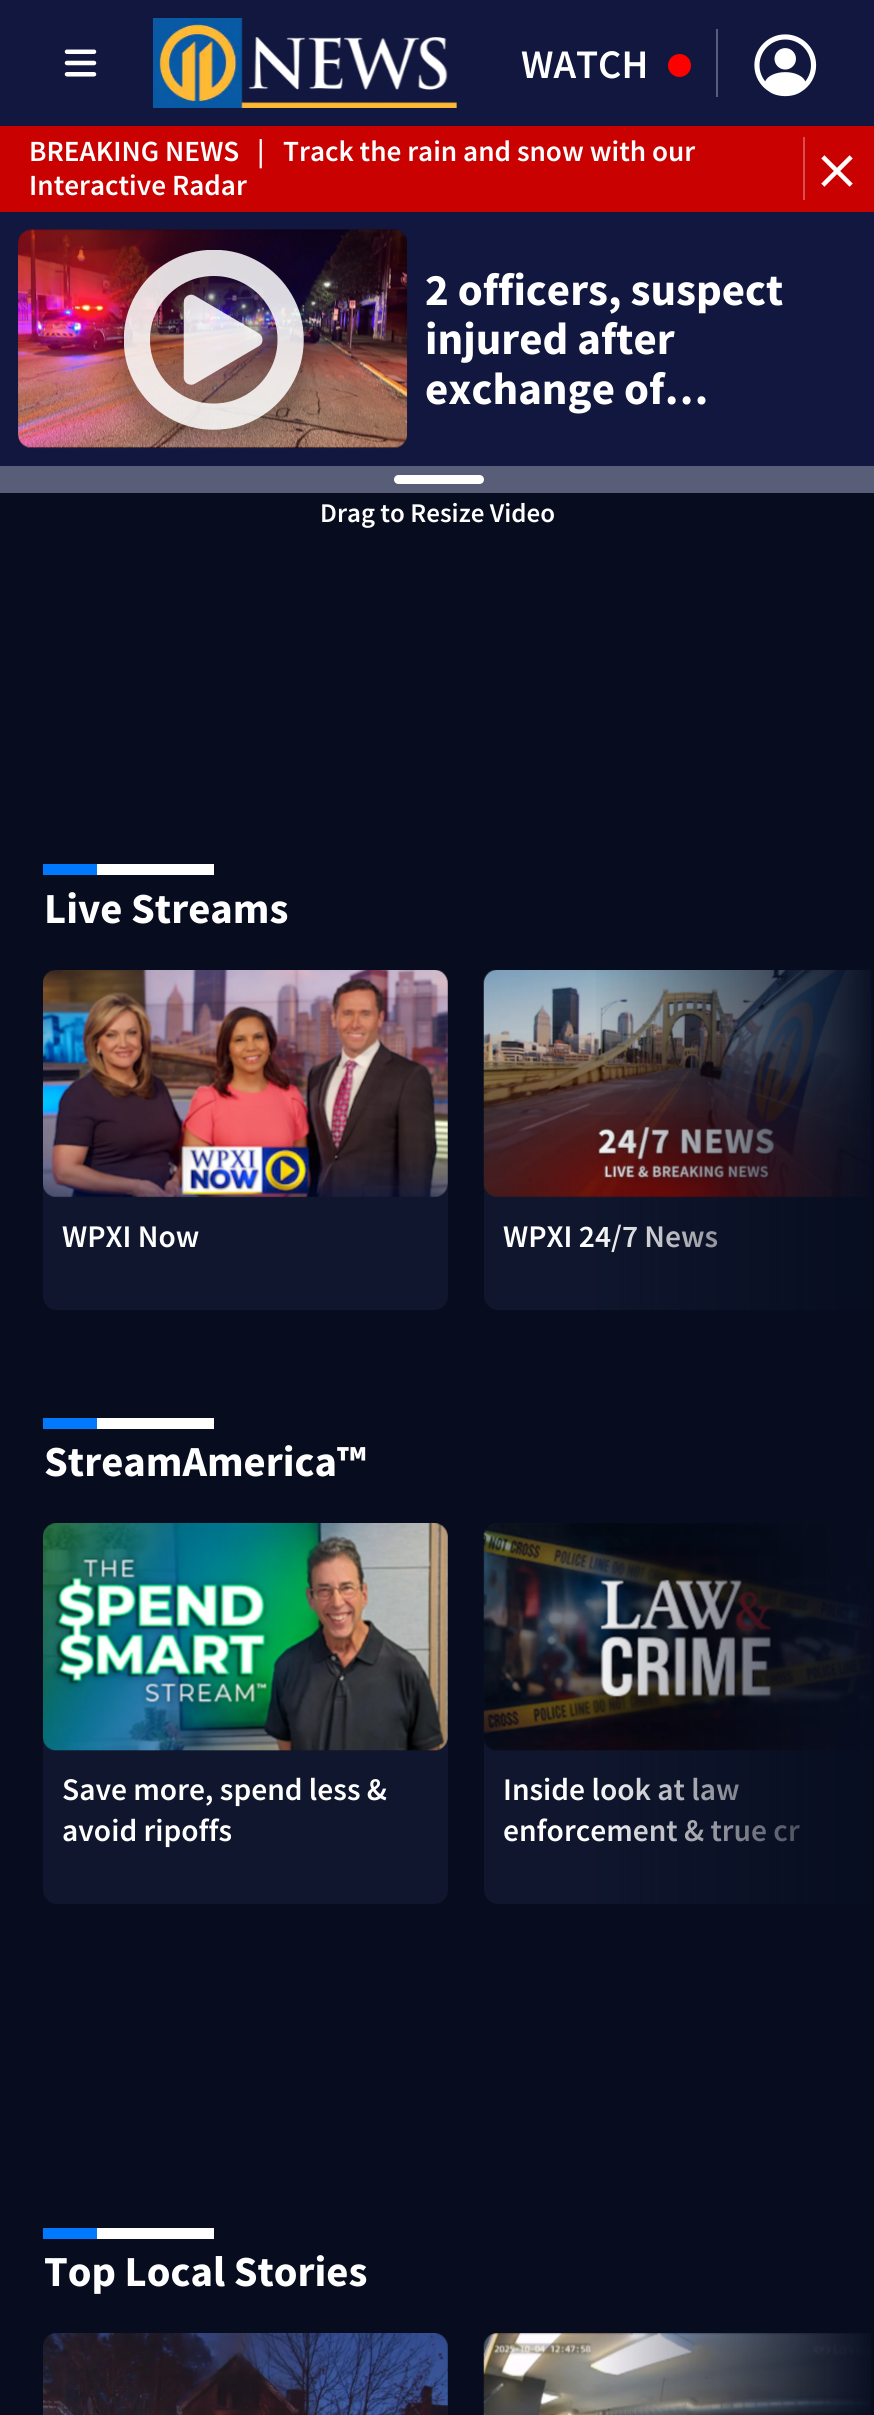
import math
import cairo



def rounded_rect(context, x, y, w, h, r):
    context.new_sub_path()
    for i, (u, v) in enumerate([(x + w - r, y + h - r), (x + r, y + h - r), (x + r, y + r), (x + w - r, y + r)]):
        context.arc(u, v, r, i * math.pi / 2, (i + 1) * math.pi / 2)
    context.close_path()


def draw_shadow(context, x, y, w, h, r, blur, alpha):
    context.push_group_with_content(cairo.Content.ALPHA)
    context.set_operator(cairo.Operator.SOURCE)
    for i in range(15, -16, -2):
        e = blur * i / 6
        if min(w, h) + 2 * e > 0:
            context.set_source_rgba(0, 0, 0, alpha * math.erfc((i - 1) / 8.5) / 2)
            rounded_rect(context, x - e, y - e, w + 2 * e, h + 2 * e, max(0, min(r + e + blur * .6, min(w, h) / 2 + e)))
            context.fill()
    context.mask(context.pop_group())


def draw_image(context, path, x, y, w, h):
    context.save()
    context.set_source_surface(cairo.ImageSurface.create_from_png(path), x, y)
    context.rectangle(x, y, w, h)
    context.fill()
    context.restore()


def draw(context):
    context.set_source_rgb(7 / 255, 13 / 255, 31 / 255)
    context.paint()
    context.set_source_rgb(17 / 255, 23 / 255, 62 / 255)
    context.rectangle(0, 0, 874, 126)
    context.fill()
    draw_image(context, "images/1.png", 64, 49, 33, 28)
    draw_image(context, "images/2.png", 153, 18, 304, 90)
    context.set_source_rgb(1, 0, 0)
    context.arc(679.5, 65.5, 11.5, 0, 2 * math.pi)
    context.fill()
    context.set_source_rgb(88 / 255, 93 / 255, 120 / 255)
    context.rectangle(716, 29, 2, 68)
    context.fill()
    draw_image(context, "images/3.png", 754, 34, 63, 63)
    context.set_source_rgb(202 / 255, 1 / 255, 1 / 255)
    context.rectangle(0, 126, 874, 86)
    context.fill()
    context.set_source_rgb(218 / 255, 77 / 255, 77 / 255)
    context.rectangle(803, 137, 2, 63)
    context.fill()
    draw_image(context, "images/4.png", 821, 155, 32, 32)
    context.set_source_rgb(17 / 255, 23 / 255, 62 / 255)
    context.rectangle(0, 212, 874, 254)
    context.fill()
    context.set_source_rgb(0, 0, 0)
    rounded_rect(context, 18, 230, 389, 218, 14)
    context.fill()
    draw_image(context, "images/5.png", 18, 229, 390, 220)
    context.save()
    rounded_rect(context, 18, 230, 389, 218, 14)
    context.clip()
    context.set_fill_rule(cairo.FillRule.EVEN_ODD)
    context.new_path()
    context.move_to(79, 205)
    context.line_to(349, 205)
    context.line_to(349, 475)
    context.line_to(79, 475)
    context.close_path()
    context.move_to(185, 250)
    context.line_to(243, 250)
    context.curve_to(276.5, 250, 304, 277.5, 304, 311)
    context.line_to(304, 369)
    context.curve_to(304, 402.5, 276.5, 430, 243, 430)
    context.line_to(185, 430)
    context.curve_to(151.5, 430, 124, 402.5, 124, 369)
    context.line_to(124, 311)
    context.curve_to(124, 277.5, 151.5, 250, 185, 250)
    context.close_path()
    context.clip()
    context.set_source_rgb(0, 0, 0)
    draw_shadow(context, 113, 239, 202, 202, 72, 11, 0.21)
    context.restore()
    context.set_source_rgba(0, 0, 0, 0.21)
    rounded_rect(context, 124, 250, 180, 180, 61)
    context.fill()
    draw_image(context, "images/6.png", 124, 250, 180, 180)
    context.set_source_rgb(88 / 255, 93 / 255, 120 / 255)
    context.rectangle(0, 466, 874, 27)
    context.fill()
    context.set_source_rgb(1, 1, 1)
    rounded_rect(context, 394, 475, 90, 9, 4.5)
    context.fill()
    context.rectangle(97, 864, 117, 11)
    context.fill()
    context.set_source_rgb(0, 121 / 255, 1)
    context.rectangle(43, 864, 54, 11)
    context.fill()
    context.set_source_rgb(15 / 255, 22 / 255, 45 / 255)
    rounded_rect(context, 43, 970, 405, 340, 14)
    context.fill()
    draw_image(context, "images/7.png", 43, 970, 405, 228)
    context.new_path()
    context.move_to(498, 970)
    context.line_to(871, 970)
    context.line_to(871, 1310)
    context.line_to(498, 1310)
    context.curve_to(490.5, 1310, 484, 1303.5, 484, 1296)
    context.line_to(484, 984)
    context.curve_to(484, 976.5, 490.5, 970, 498, 970)
    context.close_path()
    context.fill()
    draw_image(context, "images/8.png", 483, 970, 388, 228)
    context.set_source_rgb(1, 1, 1)
    context.rectangle(97, 1418, 117, 11)
    context.fill()
    context.set_source_rgb(0, 121 / 255, 1)
    context.rectangle(43, 1418, 54, 11)
    context.fill()
    context.set_source_rgb(15 / 255, 22 / 255, 45 / 255)
    rounded_rect(context, 43, 1523, 405, 381, 14)
    context.fill()
    draw_image(context, "images/9.png", 43, 1523, 405, 228)
    context.new_path()
    context.move_to(498, 1523)
    context.line_to(871, 1523)
    context.line_to(871, 1904)
    context.line_to(498, 1904)
    context.curve_to(490.5, 1904, 484, 1897.5, 484, 1890)
    context.line_to(484, 1537)
    context.curve_to(484, 1529.5, 490.5, 1523, 498, 1523)
    context.close_path()
    context.fill()
    draw_image(context, "images/10.png", 483, 1523, 388, 228)
    context.set_source_rgb(1, 1, 1)
    context.rectangle(97, 2228, 117, 11)
    context.fill()
    context.set_source_rgb(0, 121 / 255, 1)
    context.rectangle(43, 2228, 54, 11)
    context.fill()
    context.set_source_rgb(15 / 255, 22 / 255, 45 / 255)
    rounded_rect(context, 43, 2333, 405, 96, 14)
    context.fill()
    draw_image(context, "images/11.png", 43, 2333, 405, 82)
    draw_image(context, "images/12.png", 483, 2333, 388, 82)
    context.select_font_face("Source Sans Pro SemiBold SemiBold")
    context.set_font_size(40.5)
    context.set_source_rgb(1, 1, 1)
    context.move_to(521, 78)
    context.show_text("WATCH")
    context.set_font_size(29.25)
    context.move_to(29, 161)
    context.show_text("BREAKING NEWS")
    context.move_to(257, 161)
    context.show_text("|")
    context.move_to(283, 161)
    context.show_text("Track the rain and snow with our")
    context.move_to(29, 195)
    context.show_text("Interactive Radar")
    context.select_font_face("Source Sans Pro", cairo.FontSlant.NORMAL, cairo.FontWeight.BOLD)
    context.set_font_size(45)
    context.move_to(425, 305)
    context.show_text("2 officers, suspect")
    context.move_to(425, 354)
    context.show_text("injured after")
    context.move_to(425, 404)
    context.show_text("exchange of…")
    context.select_font_face("Source Sans Pro SemiBold SemiBold")
    context.set_font_size(27)
    context.move_to(320, 522)
    context.show_text("Drag to Resize Video")
    context.select_font_face("Source Sans Pro", cairo.FontSlant.NORMAL, cairo.FontWeight.BOLD)
    context.set_font_size(42.75)
    context.move_to(44, 923)
    context.show_text("Live Streams")
    context.select_font_face("Source Sans Pro SemiBold SemiBold")
    context.set_font_size(31.5)
    context.move_to(62, 1247)
    context.show_text("WPXI Now")
    context.move_to(503, 1247)
    context.show_text("WPXI 24/7 News")
    gradient = cairo.LinearGradient(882, 1169, 590, 1169)
    gradient.add_color_stop_rgba(0, 7 / 255, 13 / 255, 31 / 255, 1)
    gradient.add_color_stop_rgba(1, 7 / 255, 13 / 255, 31 / 255, 0)
    context.set_source(gradient)
    context.rectangle(596, 970, 275, 340)
    context.fill()
    context.select_font_face("Source Sans Pro", cairo.FontSlant.NORMAL, cairo.FontWeight.BOLD)
    context.set_font_size(42.75)
    context.set_source_rgb(1, 1, 1)
    context.move_to(44, 1476)
    context.show_text("StreamAmerica™")
    context.select_font_face("Source Sans Pro SemiBold SemiBold")
    context.set_font_size(31.5)
    context.move_to(62, 1800)
    context.show_text("Save more, spend less &")
    context.move_to(62, 1841)
    context.show_text("avoid ripoffs")
    context.move_to(503, 1800)
    context.show_text("Inside look at law")
    context.move_to(503, 1841)
    context.show_text("enforcement & true cr")
    gradient = cairo.LinearGradient(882, 1743, 590, 1743)
    gradient.add_color_stop_rgba(0, 7 / 255, 13 / 255, 31 / 255, 1)
    gradient.add_color_stop_rgba(1, 7 / 255, 13 / 255, 31 / 255, 0)
    context.set_source(gradient)
    context.rectangle(596, 1523, 275, 381)
    context.fill()
    context.select_font_face("Source Sans Pro", cairo.FontSlant.NORMAL, cairo.FontWeight.BOLD)
    context.set_font_size(42.75)
    context.set_source_rgb(1, 1, 1)
    context.move_to(44, 2286)
    context.show_text("Top Local Stories")


surface = cairo.ImageSurface(cairo.Format.RGB24, 874, 2415)
context = cairo.Context(surface)
options = cairo.FontOptions()
options.set_hint_metrics(cairo.HintMetrics.OFF)
options.set_hint_style(cairo.HintStyle.NONE)
context.set_font_options(options)
context.set_miter_limit(4)
draw(context)
surface.write_to_png("out.png")
